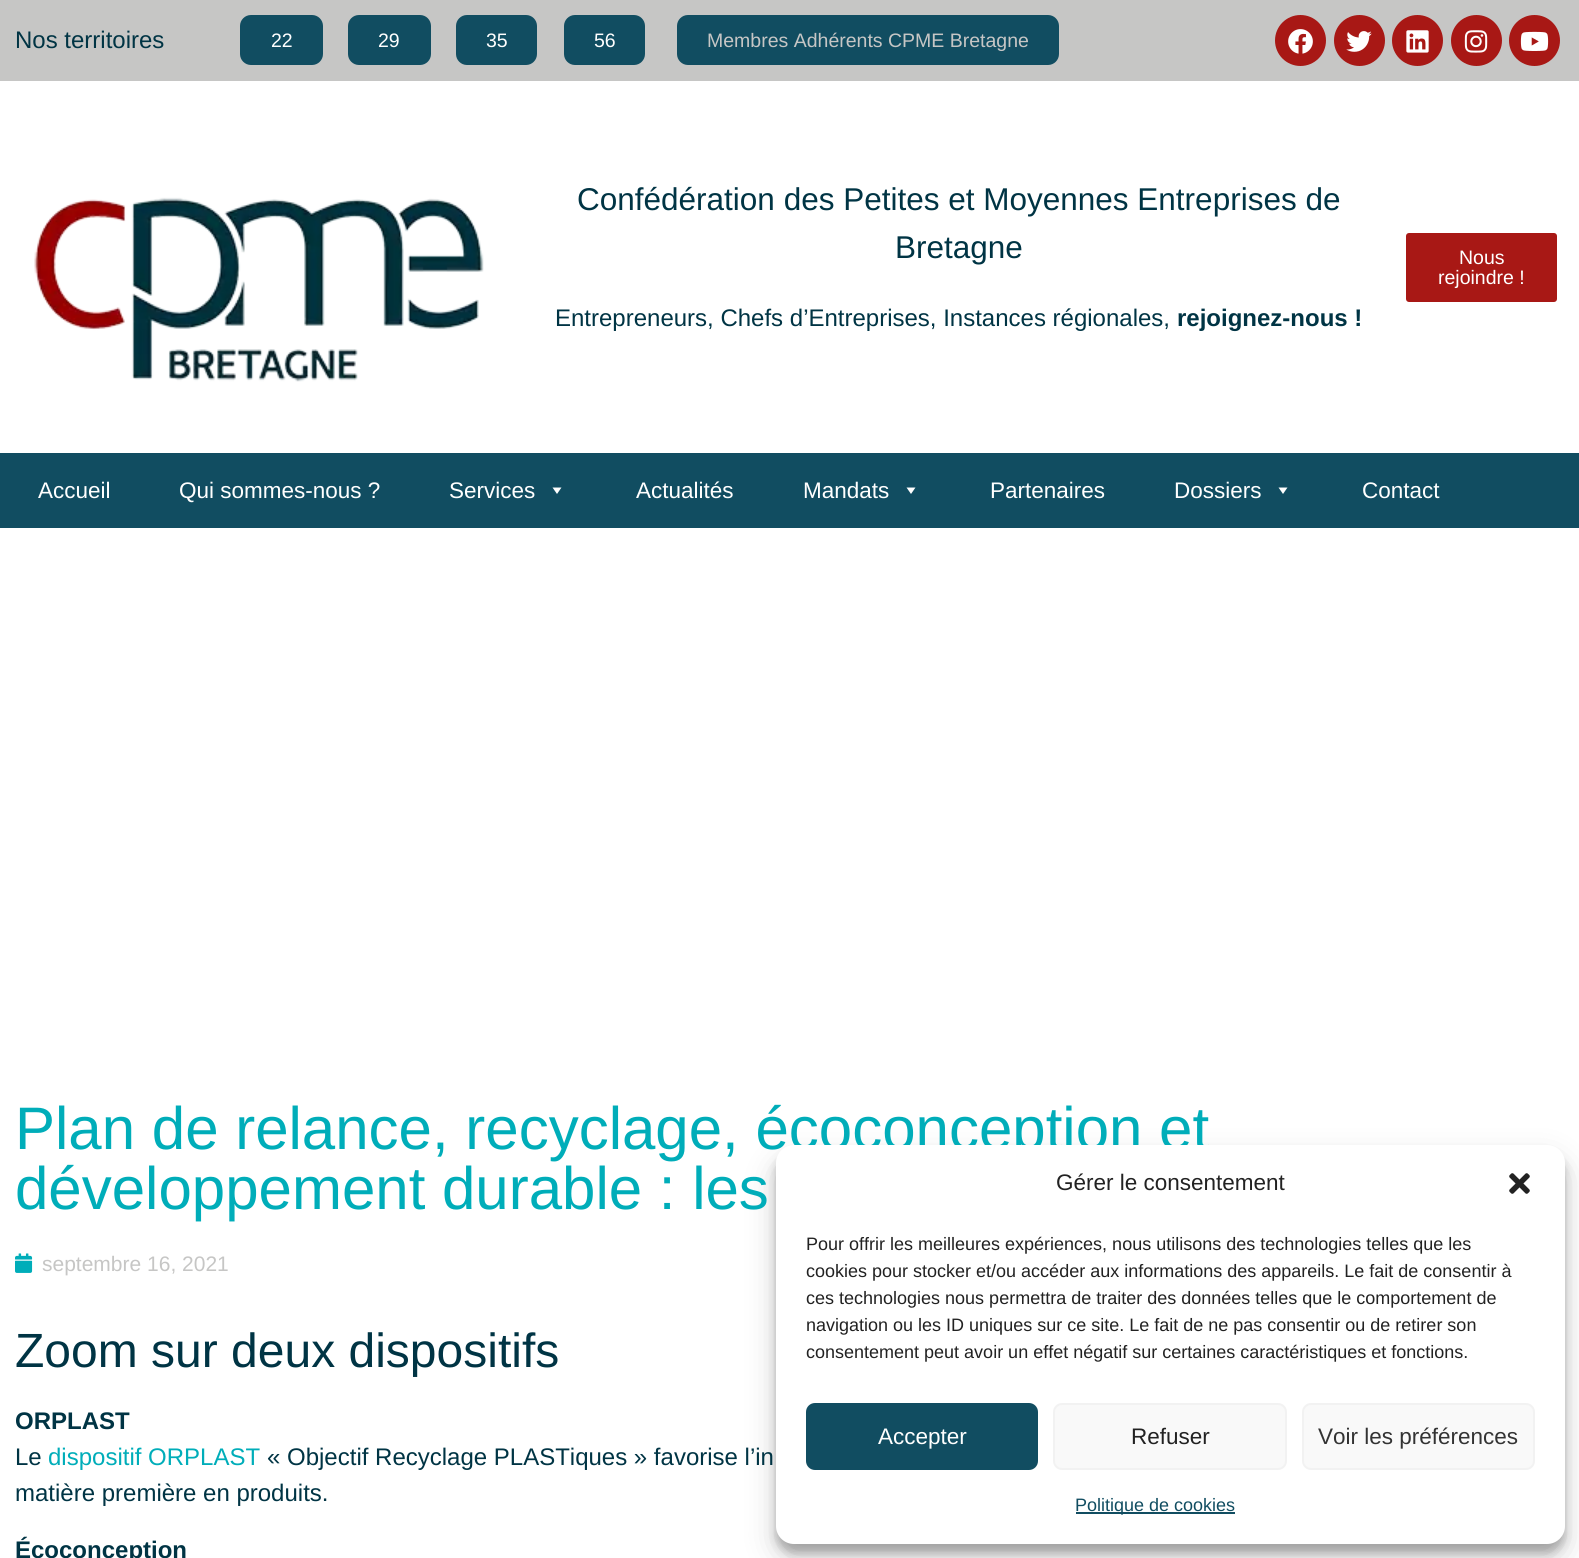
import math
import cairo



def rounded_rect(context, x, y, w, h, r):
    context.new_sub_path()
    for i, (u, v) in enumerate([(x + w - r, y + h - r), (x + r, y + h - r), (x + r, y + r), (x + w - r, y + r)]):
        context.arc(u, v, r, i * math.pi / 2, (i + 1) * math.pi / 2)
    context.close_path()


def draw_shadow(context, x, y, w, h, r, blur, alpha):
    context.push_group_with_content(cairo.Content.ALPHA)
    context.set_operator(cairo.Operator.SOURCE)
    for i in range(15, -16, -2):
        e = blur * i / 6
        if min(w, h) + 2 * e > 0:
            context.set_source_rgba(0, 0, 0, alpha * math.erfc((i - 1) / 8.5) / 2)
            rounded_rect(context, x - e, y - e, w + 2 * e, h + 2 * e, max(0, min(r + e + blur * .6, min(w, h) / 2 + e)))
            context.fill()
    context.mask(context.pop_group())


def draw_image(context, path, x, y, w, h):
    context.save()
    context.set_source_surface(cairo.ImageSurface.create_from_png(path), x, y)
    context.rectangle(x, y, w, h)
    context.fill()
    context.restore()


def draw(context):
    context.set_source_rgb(1, 1, 1)
    context.paint()
    context.set_source_rgb(198 / 255, 198 / 255, 197 / 255)
    context.rectangle(0, 0, 1579, 81)
    context.fill()
    context.set_source_rgb(17 / 255, 77 / 255, 97 / 255)
    rounded_rect(context, 240, 15, 83, 50, 11)
    context.fill()
    rounded_rect(context, 348, 15, 83, 50, 11)
    context.fill()
    rounded_rect(context, 456, 15, 81, 50, 11)
    context.fill()
    rounded_rect(context, 564, 15, 81, 50, 11)
    context.fill()
    rounded_rect(context, 677, 15, 382, 50, 11)
    context.fill()
    context.set_source_rgb(168 / 255, 24 / 255, 21 / 255)
    context.arc(1300.5, 40.5, 25.5, 0, 2 * math.pi)
    context.fill()
    draw_image(context, "images/1.png", 1288, 29, 25, 25)
    context.arc(1359.5, 40.5, 25.5, 0, 2 * math.pi)
    context.fill()
    draw_image(context, "images/2.png", 1346, 31, 26, 21)
    context.arc(1417.5, 40.5, 25.5, 0, 2 * math.pi)
    context.fill()
    draw_image(context, "images/3.png", 1406, 30, 23, 23)
    context.arc(1476.5, 40.5, 25.5, 0, 2 * math.pi)
    context.fill()
    draw_image(context, "images/4.png", 1464, 30, 24, 23)
    context.arc(1534.5, 40.5, 25.5, 0, 2 * math.pi)
    context.fill()
    draw_image(context, "images/5.png", 1520, 31, 29, 20)
    draw_image(context, "images/6.png", 34, 197, 450, 185)
    rounded_rect(context, 1406, 233, 151, 69, 3)
    context.fill()
    context.set_source_rgb(17 / 255, 77 / 255, 97 / 255)
    context.rectangle(0, 453, 1579, 75)
    context.fill()
    context.set_source_rgb(1, 1, 1)
    context.new_path()
    context.move_to(561.5, 487.5)
    context.line_to(557, 494)
    context.line_to(552.5, 487.5)
    context.close_path()
    context.fill()
    context.new_path()
    context.move_to(915.5, 487.5)
    context.line_to(911, 494)
    context.line_to(906.5, 487.5)
    context.close_path()
    context.fill()
    context.new_path()
    context.move_to(1287.5, 487.5)
    context.line_to(1283, 494)
    context.line_to(1278.5, 487.5)
    context.close_path()
    context.fill()
    draw_image(context, "images/7.png", 15, 1253, 18, 20)
    context.set_source_rgb(0, 0, 0)
    draw_shadow(context, 776, 1154, 789, 399, 18, 4.5, 0.23)
    draw_shadow(context, 776, 1160, 789, 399, 18, 15, 0.19)
    context.select_font_face("Liberation Sans")
    context.set_font_size(24)
    context.set_source_rgb(0, 52 / 255, 68 / 255)
    context.move_to(15, 48)
    context.show_text("Nos territoires")
    context.set_font_size(19.5)
    context.set_source_rgb(1, 1, 1)
    context.move_to(271, 47)
    context.show_text("22")
    context.move_to(378, 47)
    context.show_text("29")
    context.move_to(486, 47)
    context.show_text("35")
    context.move_to(594, 47)
    context.show_text("56")
    context.set_source_rgb(198 / 255, 198 / 255, 197 / 255)
    context.move_to(707, 47)
    context.show_text("Membres Adhérents CPME Bretagne")
    context.set_font_size(31.5)
    context.set_source_rgb(0, 52 / 255, 68 / 255)
    context.move_to(577, 210)
    context.show_text("Confédération des Petites et Moyennes Entreprises de")
    context.move_to(895, 258)
    context.show_text("Bretagne")
    context.set_font_size(24)
    context.move_to(555, 326)
    context.show_text("Entrepreneurs, Chefs d’Entreprises, Instances régionales,")
    context.select_font_face("Liberation Sans", cairo.FontSlant.NORMAL, cairo.FontWeight.BOLD)
    context.move_to(1177, 326)
    context.show_text("rejoignez-nous !")
    context.select_font_face("Liberation Sans")
    context.set_font_size(19.5)
    context.set_source_rgb(1, 1, 1)
    context.move_to(1459, 264)
    context.show_text("Nous")
    context.move_to(1438, 284)
    context.show_text("rejoindre !")
    context.set_font_size(22.5)
    context.move_to(38, 498)
    context.show_text("Accueil")
    context.move_to(179, 498)
    context.show_text("Qui sommes-nous ?")
    context.move_to(449, 498)
    context.show_text("Services")
    context.move_to(636, 498)
    context.show_text("Actualités")
    context.move_to(803, 498)
    context.show_text("Mandats")
    context.move_to(990, 498)
    context.show_text("Partenaires")
    context.move_to(1174, 498)
    context.show_text("Dossiers")
    context.move_to(1362, 498)
    context.show_text("Contact")
    context.set_font_size(60)
    context.set_source_rgb(0, 173 / 255, 185 / 255)
    context.move_to(15, 1149)
    context.show_text("Plan de relance, recyclage, écoconception et")
    context.move_to(15, 1209)
    context.show_text("développement durable : les")
    context.set_font_size(21)
    context.set_source_rgb(198 / 255, 198 / 255, 197 / 255)
    context.move_to(42, 1271)
    context.show_text("septembre 16, 2021")
    context.set_font_size(48)
    context.set_source_rgb(0, 52 / 255, 68 / 255)
    context.move_to(15, 1367)
    context.show_text("Zoom sur deux dispositifs")
    context.select_font_face("Liberation Sans", cairo.FontSlant.NORMAL, cairo.FontWeight.BOLD)
    context.set_font_size(24)
    context.move_to(15, 1429)
    context.show_text("ORPLAST")
    context.select_font_face("Liberation Sans")
    context.move_to(15, 1465)
    context.show_text("Le")
    context.set_source_rgb(0, 173 / 255, 185 / 255)
    context.move_to(48, 1465)
    context.show_text("dispositif ORPLAST")
    context.set_source_rgb(0, 52 / 255, 68 / 255)
    context.move_to(267, 1465)
    context.show_text("« Objectif Recyclage PLASTiques » favorise l’in")
    context.move_to(15, 1501)
    context.show_text("matière première en produits.")
    context.select_font_face("Liberation Sans", cairo.FontSlant.NORMAL, cairo.FontWeight.BOLD)
    context.move_to(15, 1558)
    context.show_text("Écoconception")
    context.set_source_rgb(1, 1, 1)
    rounded_rect(context, 776, 1145, 789, 399, 18)
    context.fill()
    context.select_font_face("Liberation Sans")
    context.set_font_size(22.5)
    context.set_source_rgb(34 / 255, 34 / 255, 34 / 255)
    context.move_to(1056, 1190)
    context.show_text("Gérer le consentement")
    draw_image(context, "images/8.png", 1509, 1173, 21, 21)
    context.set_font_size(18)
    context.move_to(806, 1250)
    context.show_text("Pour offrir les meilleures expériences, nous utilisons des technologies telles que les")
    context.move_to(806, 1277)
    context.show_text("cookies pour stocker et/ou accéder aux informations des appareils. Le fait de consentir à")
    context.move_to(806, 1304)
    context.show_text("ces technologies nous permettra de traiter des données telles que le comportement de")
    context.move_to(806, 1331)
    context.show_text("navigation ou les ID uniques sur ce site. Le fait de ne pas consentir ou de retirer son")
    context.move_to(806, 1358)
    context.show_text("consentement peut avoir un effet négatif sur certaines caractéristiques et fonctions.")
    context.set_source_rgb(17 / 255, 77 / 255, 97 / 255)
    rounded_rect(context, 807, 1404, 230, 65, 8)
    context.fill_preserve()
    context.stroke()
    context.set_font_size(22.5)
    context.set_source_rgb(1, 1, 1)
    context.move_to(878, 1444)
    context.show_text("Accepter")
    context.set_source_rgb(249 / 255, 249 / 255, 249 / 255)
    rounded_rect(context, 1054, 1404, 232, 65, 8)
    context.fill_preserve()
    context.set_source_rgb(242 / 255, 242 / 255, 242 / 255)
    context.stroke()
    context.set_source_rgb(34 / 255, 34 / 255, 34 / 255)
    context.move_to(1131, 1444)
    context.show_text("Refuser")
    context.set_source_rgb(249 / 255, 249 / 255, 249 / 255)
    rounded_rect(context, 1303, 1404, 231, 65, 8)
    context.fill_preserve()
    context.set_source_rgb(242 / 255, 242 / 255, 242 / 255)
    context.stroke()
    context.set_source_rgb(51 / 255, 51 / 255, 51 / 255)
    context.move_to(1318, 1444)
    context.show_text("Voir les préférences")
    context.set_source_rgb(17 / 255, 77 / 255, 97 / 255)
    context.rectangle(1076, 1512, 159, 2)
    context.fill()
    context.set_font_size(18)
    context.move_to(1075, 1511)
    context.show_text("Politique de cookies")


surface = cairo.ImageSurface(cairo.Format.RGB24, 1579, 1558)
context = cairo.Context(surface)
options = cairo.FontOptions()
options.set_hint_metrics(cairo.HintMetrics.OFF)
options.set_hint_style(cairo.HintStyle.NONE)
context.set_font_options(options)
context.set_miter_limit(4)
draw(context)
surface.write_to_png("out.png")
